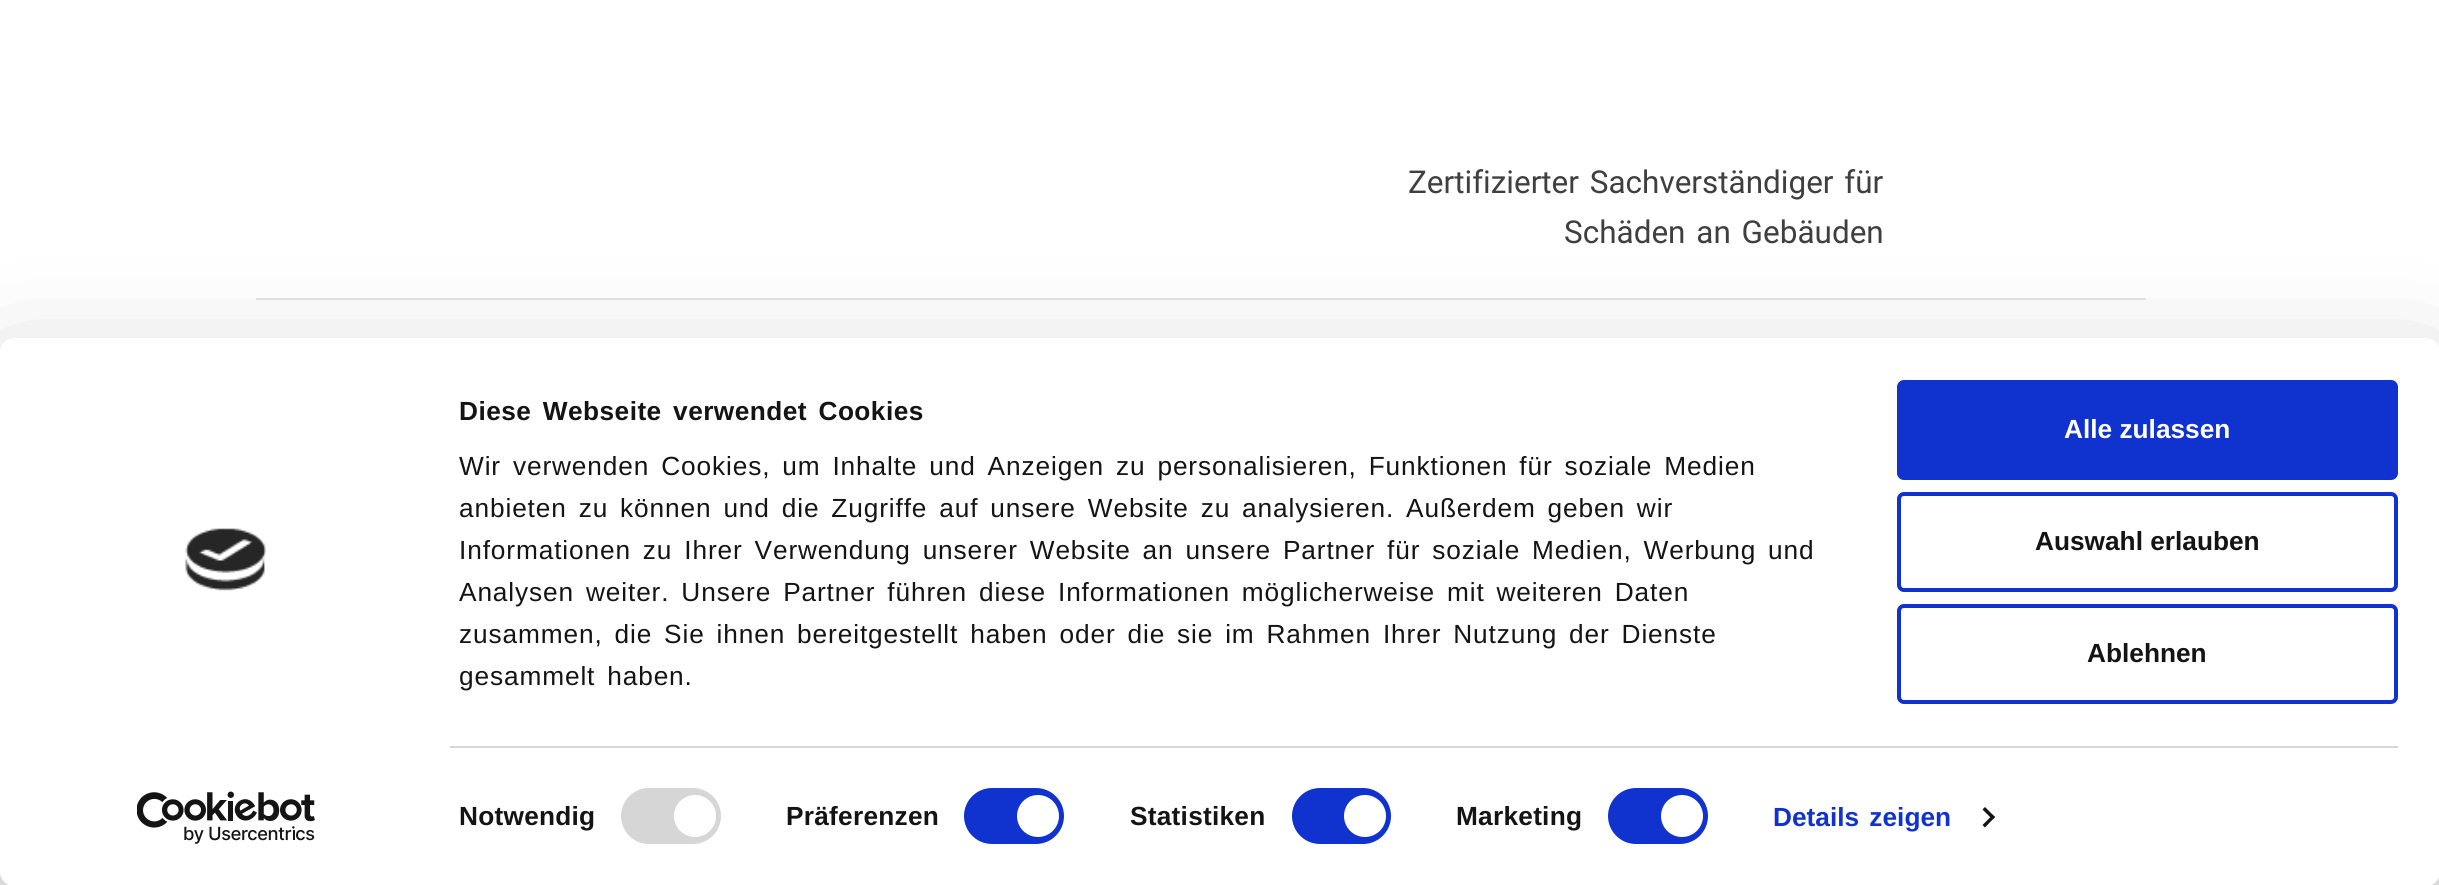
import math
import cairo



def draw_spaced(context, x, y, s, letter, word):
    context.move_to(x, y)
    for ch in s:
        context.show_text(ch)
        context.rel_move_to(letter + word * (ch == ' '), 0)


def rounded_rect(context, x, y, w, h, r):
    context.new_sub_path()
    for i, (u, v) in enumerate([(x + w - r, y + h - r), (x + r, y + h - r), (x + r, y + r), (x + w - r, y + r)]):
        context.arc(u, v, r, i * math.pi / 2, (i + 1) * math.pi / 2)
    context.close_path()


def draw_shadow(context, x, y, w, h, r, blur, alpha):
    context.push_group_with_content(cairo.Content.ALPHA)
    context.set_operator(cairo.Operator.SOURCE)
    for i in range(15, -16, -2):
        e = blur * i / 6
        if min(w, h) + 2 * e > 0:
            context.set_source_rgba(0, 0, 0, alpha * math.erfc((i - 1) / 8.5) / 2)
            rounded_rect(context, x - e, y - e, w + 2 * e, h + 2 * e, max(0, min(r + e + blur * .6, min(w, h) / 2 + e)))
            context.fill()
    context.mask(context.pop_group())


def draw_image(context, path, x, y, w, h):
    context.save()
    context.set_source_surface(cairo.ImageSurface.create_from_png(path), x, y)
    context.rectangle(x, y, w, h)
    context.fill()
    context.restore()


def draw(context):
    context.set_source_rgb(1, 1, 1)
    context.paint()
    context.set_source_rgb(228 / 255, 228 / 255, 228 / 255)
    context.rectangle(256, 298, 1890, 2)
    context.fill()
    context.set_source_rgb(0, 0, 0)
    draw_shadow(context, 0, 390, 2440, 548, 14, 61, 0.3)
    context.set_source_rgb(1, 1, 1)
    rounded_rect(context, 0, 338, 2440, 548, 14)
    context.fill()
    draw_image(context, "images/1.png", 185, 528, 81, 63)
    draw_image(context, "images/2.png", 137, 791, 178, 53)
    context.set_source_rgb(214 / 255, 214 / 255, 214 / 255)
    context.rectangle(450, 746, 1948, 2)
    context.fill()
    rounded_rect(context, 621, 788, 100, 56, 28)
    context.fill()
    context.set_source_rgb(1, 1, 1)
    context.arc(695, 816, 21, 0, 2 * math.pi)
    context.fill()
    context.set_source_rgb(16 / 255, 50 / 255, 207 / 255)
    rounded_rect(context, 964, 788, 100, 56, 28)
    context.fill()
    context.set_source_rgb(1, 1, 1)
    context.arc(1038, 816, 21, 0, 2 * math.pi)
    context.fill()
    context.set_source_rgb(16 / 255, 50 / 255, 207 / 255)
    rounded_rect(context, 1292, 788, 99, 56, 28)
    context.fill()
    context.set_source_rgb(1, 1, 1)
    context.arc(1365, 816, 21, 0, 2 * math.pi)
    context.fill()
    context.set_source_rgb(16 / 255, 50 / 255, 207 / 255)
    rounded_rect(context, 1608, 788, 100, 56, 28)
    context.fill()
    context.set_source_rgb(1, 1, 1)
    context.arc(1682, 816, 21, 0, 2 * math.pi)
    context.fill()
    context.set_source_rgb(20 / 255, 20 / 255, 20 / 255)
    context.new_path()
    context.move_to(1985, 807)
    context.line_to(1995, 817)
    context.line_to(1992.5, 819.5)
    context.line_to(1982.5, 809.5)
    context.close_path()
    context.fill()
    context.new_path()
    context.move_to(1992.5, 815)
    context.line_to(1995, 817)
    context.line_to(1985, 827.5)
    context.line_to(1982.5, 825)
    context.close_path()
    context.fill()
    context.set_source_rgb(16 / 255, 50 / 255, 207 / 255)
    rounded_rect(context, 1899, 382, 497, 96, 5)
    context.fill_preserve()
    context.set_line_width(4)
    context.stroke()
    rounded_rect(context, 1899, 494, 497, 96, 5)
    context.stroke()
    rounded_rect(context, 1899, 606, 497, 96, 5)
    context.stroke()
    context.select_font_face("Roboto")
    context.set_font_size(31.5)
    context.set_source_rgb(63 / 255, 63 / 255, 63 / 255)
    draw_spaced(context, 1408, 193, "Zertifizierter Sachverständiger für", 0, 3)
    draw_spaced(context, 1564, 243, "Schäden an Gebäuden", 0, 3)
    context.select_font_face("Liberation Sans", cairo.FontSlant.NORMAL, cairo.FontWeight.BOLD)
    context.set_font_size(26.25)
    context.set_source_rgb(20 / 255, 20 / 255, 20 / 255)
    draw_spaced(context, 459, 420, "Diese Webseite verwendet Cookies", 0.45, 3.75)
    context.select_font_face("Liberation Sans")
    draw_spaced(context, 459, 475, "Wir verwenden Cookies, um Inhalte und Anzeigen zu personalisieren, Funktionen für soziale Medien", 0.88, 3.75)
    draw_spaced(context, 459, 517, "anbieten zu können und die Zugriffe auf unsere Website zu analysieren. Außerdem geben wir", 0.88, 3.75)
    draw_spaced(context, 459, 559, "Informationen zu Ihrer Verwendung unserer Website an unsere Partner für soziale Medien, Werbung und", 0.88, 3.75)
    draw_spaced(context, 459, 601, "Analysen weiter. Unsere Partner führen diese Informationen möglicherweise mit weiteren Daten", 0.88, 3.75)
    draw_spaced(context, 459, 643, "zusammen, die Sie ihnen bereitgestellt haben oder die sie im Rahmen Ihrer Nutzung der Dienste", 0.88, 3.75)
    draw_spaced(context, 459, 685, "gesammelt haben.", 0.88, 3.75)
    context.select_font_face("Liberation Sans", cairo.FontSlant.NORMAL, cairo.FontWeight.BOLD)
    draw_spaced(context, 459, 825, "Notwendig", 0.25, 0)
    draw_spaced(context, 786, 825, "Präferenzen", 0.25, 0)
    draw_spaced(context, 1130, 825, "Statistiken", 0.25, 0)
    draw_spaced(context, 1456, 825, "Marketing", 0.25, 0)
    context.set_source_rgb(16 / 255, 50 / 255, 207 / 255)
    draw_spaced(context, 1773, 826, "Details zeigen", 0, 3)
    context.set_source_rgb(1, 1, 1)
    context.move_to(2064, 438)
    context.show_text("Alle zulassen")
    context.set_source_rgb(20 / 255, 20 / 255, 20 / 255)
    context.move_to(2035, 550)
    context.show_text("Auswahl erlauben")
    context.move_to(2087, 662)
    context.show_text("Ablehnen")


surface = cairo.ImageSurface(cairo.Format.RGB24, 2439, 885)
context = cairo.Context(surface)
options = cairo.FontOptions()
options.set_hint_metrics(cairo.HintMetrics.OFF)
options.set_hint_style(cairo.HintStyle.NONE)
context.set_font_options(options)
context.set_miter_limit(4)
draw(context)
surface.write_to_png("out.png")
